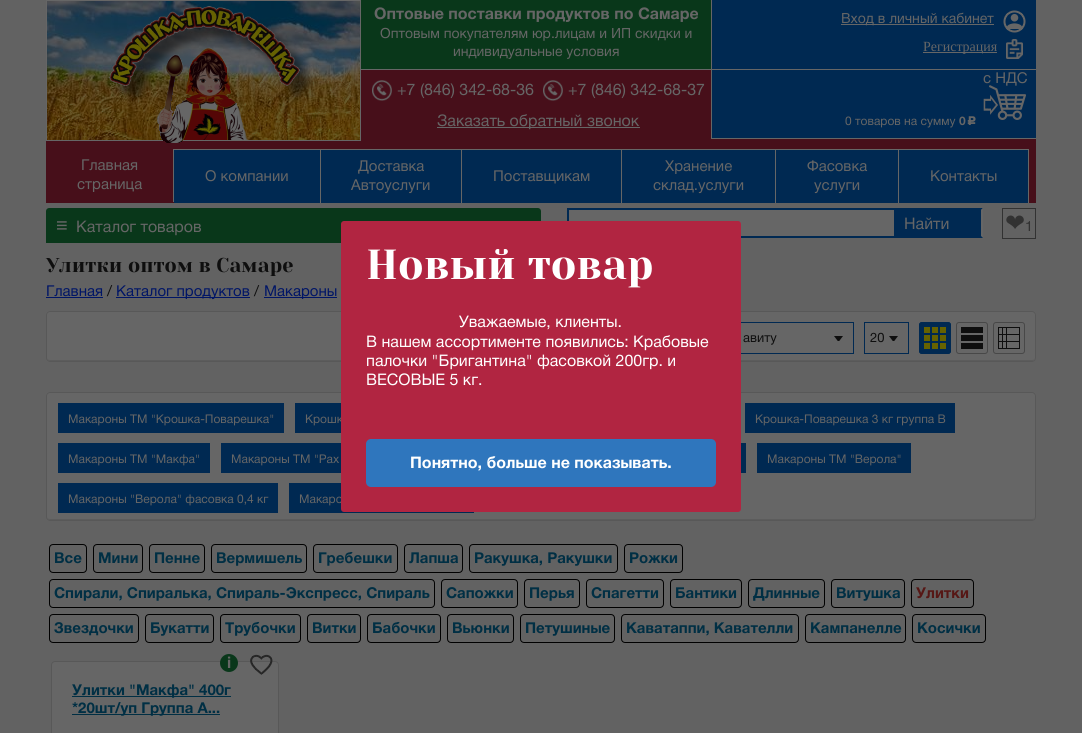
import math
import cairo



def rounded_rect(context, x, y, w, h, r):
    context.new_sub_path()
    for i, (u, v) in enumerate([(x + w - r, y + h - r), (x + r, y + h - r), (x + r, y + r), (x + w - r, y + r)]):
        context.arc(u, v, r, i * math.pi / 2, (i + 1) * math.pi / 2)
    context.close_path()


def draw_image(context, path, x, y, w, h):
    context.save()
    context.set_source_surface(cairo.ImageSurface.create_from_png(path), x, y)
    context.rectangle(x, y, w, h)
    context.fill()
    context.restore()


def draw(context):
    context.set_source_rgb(98 / 255, 98 / 255, 98 / 255)
    context.paint()
    context.set_source_rgb(71 / 255, 15 / 255, 26 / 255)
    context.rectangle(46, 139, 990, 64)
    context.fill()
    draw_image(context, "images/1.png", 47, 1, 313, 139)
    context.rectangle(46.5, 0.5, 314, 140)
    context.set_source_rgb(102 / 255, 102 / 255, 102 / 255)
    context.set_line_width(1)
    context.stroke()
    draw_image(context, "images/2.png", 109, 6, 207, 137)
    context.set_source_rgb(9 / 255, 55 / 255, 26 / 255)
    context.rectangle(361, 0, 350, 69)
    context.fill()
    context.set_source_rgb(102 / 255, 102 / 255, 102 / 255)
    context.rectangle(361, 69, 350, 1)
    context.fill()
    context.set_source_rgb(71 / 255, 15 / 255, 26 / 255)
    context.rectangle(361, 70, 350, 69)
    context.fill()
    draw_image(context, "images/3.png", 372, 80, 20, 21)
    draw_image(context, "images/3.png", 543, 80, 20, 21)
    context.set_source_rgb(102 / 255, 102 / 255, 102 / 255)
    context.rectangle(437, 127, 203, 1)
    context.fill()
    context.set_source_rgb(0, 41 / 255, 82 / 255)
    context.rectangle(712, 0, 324, 138)
    context.fill()
    context.set_source_rgb(102 / 255, 102 / 255, 102 / 255)
    context.rectangle(711, 138, 325, 1)
    context.fill()
    context.rectangle(711, 0, 1, 139)
    context.fill()
    context.rectangle(712, 69, 324, 1)
    context.fill()
    context.rectangle(841, 24, 153, 1)
    context.fill()
    draw_image(context, "images/4.png", 1003, 10, 23, 23)
    context.rectangle(923, 52, 74, 1)
    context.fill()
    draw_image(context, "images/5.png", 1006, 39, 17, 20)
    draw_image(context, "images/6.png", 983, 85, 43, 35)
    context.rectangle(173, 149, 1, 53)
    context.fill()
    context.set_source_rgb(0, 41 / 255, 82 / 255)
    context.rectangle(174, 150, 146, 53)
    context.fill()
    context.set_source_rgb(102 / 255, 102 / 255, 102 / 255)
    context.rectangle(174, 149, 855, 1)
    context.fill()
    context.rectangle(320, 150, 1, 53)
    context.fill()
    context.set_source_rgb(0, 41 / 255, 82 / 255)
    context.rectangle(321, 150, 140, 53)
    context.fill()
    context.set_source_rgb(102 / 255, 102 / 255, 102 / 255)
    context.rectangle(461, 150, 1, 53)
    context.fill()
    context.set_source_rgb(0, 41 / 255, 82 / 255)
    context.rectangle(462, 150, 159, 53)
    context.fill()
    context.set_source_rgb(102 / 255, 102 / 255, 102 / 255)
    context.rectangle(621, 150, 1, 53)
    context.fill()
    context.set_source_rgb(0, 41 / 255, 82 / 255)
    context.rectangle(622, 150, 153, 53)
    context.fill()
    context.set_source_rgb(102 / 255, 102 / 255, 102 / 255)
    context.rectangle(775, 150, 1, 53)
    context.fill()
    context.set_source_rgb(0, 41 / 255, 82 / 255)
    context.rectangle(776, 150, 122, 53)
    context.fill()
    context.set_source_rgb(102 / 255, 102 / 255, 102 / 255)
    context.rectangle(898, 150, 1, 53)
    context.fill()
    context.set_source_rgb(0, 41 / 255, 82 / 255)
    context.rectangle(899, 150, 129, 53)
    context.fill()
    context.set_source_rgb(102 / 255, 102 / 255, 102 / 255)
    context.rectangle(1028, 150, 1, 53)
    context.fill()
    context.set_source_rgb(9 / 255, 55 / 255, 26 / 255)
    context.new_path()
    context.move_to(49, 208)
    context.line_to(538, 208)
    context.curve_to(539.5, 208, 541, 209.5, 541, 211)
    context.line_to(541, 243)
    context.line_to(46, 243)
    context.line_to(46, 211)
    context.curve_to(46, 209.5, 47.5, 208, 49, 208)
    context.close_path()
    context.fill()
    context.set_source_rgb(102 / 255, 102 / 255, 102 / 255)
    context.rectangle(569, 208, 414, 30)
    context.fill()
    context.set_source_rgb(0, 41 / 255, 82 / 255)
    context.new_path()
    context.move_to(567, 208)
    context.line_to(983, 208)
    context.line_to(981, 210)
    context.line_to(569, 210)
    context.close_path()
    context.fill()
    context.set_source_rgb(102 / 255, 102 / 255, 102 / 255)
    context.new_path()
    context.move_to(983, 208)
    context.line_to(983, 238)
    context.line_to(981, 236)
    context.line_to(981, 210)
    context.close_path()
    context.fill()
    context.set_source_rgb(0, 41 / 255, 82 / 255)
    context.new_path()
    context.move_to(983, 238)
    context.line_to(567, 238)
    context.line_to(569, 236)
    context.line_to(981, 236)
    context.close_path()
    context.fill()
    context.rectangle(567, 208, 2, 13)
    context.fill()
    context.rectangle(894, 210, 87, 26)
    context.fill()
    context.rectangle(1002.5, 208.5, 33, 30)
    context.set_source_rgb(50 / 255, 50 / 255, 50 / 255)
    context.stroke()
    context.set_source_rgb(0, 21 / 255, 102 / 255)
    context.rectangle(46, 297, 57, 1)
    context.fill()
    context.rectangle(116, 297, 134, 1)
    context.fill()
    context.rectangle(264, 297, 73, 1)
    context.fill()
    context.set_source_rgb(102 / 255, 102 / 255, 102 / 255)
    rounded_rect(context, 46, 311, 990, 51, 4)
    context.fill()
    context.set_source_rgb(92 / 255, 92 / 255, 92 / 255)
    context.new_path()
    context.move_to(47, 357)
    context.curve_to(47, 359, 48, 361, 50, 361)
    context.line_to(1032, 361)
    context.curve_to(1034, 361, 1035, 359, 1035, 357)
    context.curve_to(1035, 359, 1034, 360, 1032, 360)
    context.line_to(50, 360)
    context.curve_to(48, 360, 47, 359, 47, 357)
    context.close_path()
    context.fill()
    rounded_rect(context, 46.5, 311.5, 989, 50, 3.5)
    context.set_source_rgb(88 / 255, 88 / 255, 88 / 255)
    context.stroke()
    context.rectangle(674.5, 322.5, 179, 31)
    context.set_source_rgb(0, 41 / 255, 82 / 255)
    context.stroke()
    draw_image(context, "images/7.png", 834, 336, 9, 5)
    context.rectangle(864.5, 322.5, 44, 31)
    context.stroke()
    draw_image(context, "images/7.png", 889, 336, 9, 5)
    rounded_rect(context, 919, 322, 32, 32, 3)
    context.fill()
    draw_image(context, "images/8.png", 924, 327, 22, 22)
    rounded_rect(context, 919.5, 322.5, 31, 31, 2.5)
    context.stroke()
    draw_image(context, "images/9.png", 961, 327, 22, 22)
    rounded_rect(context, 956.5, 322.5, 31, 31, 2.5)
    context.set_source_rgb(72 / 255, 72 / 255, 72 / 255)
    context.stroke()
    draw_image(context, "images/10.png", 998, 327, 22, 22)
    rounded_rect(context, 993.5, 322.5, 31, 31, 2.5)
    context.stroke()
    context.set_source_rgb(102 / 255, 102 / 255, 102 / 255)
    rounded_rect(context, 46, 392, 990, 129, 4)
    context.fill()
    context.set_source_rgb(92 / 255, 92 / 255, 92 / 255)
    context.new_path()
    context.move_to(47, 516)
    context.curve_to(47, 518, 48, 520, 50, 520)
    context.line_to(1032, 520)
    context.curve_to(1034, 520, 1035, 518, 1035, 516)
    context.curve_to(1035, 518, 1034, 519, 1032, 519)
    context.line_to(50, 519)
    context.curve_to(48, 519, 47, 518, 47, 516)
    context.close_path()
    context.fill()
    rounded_rect(context, 46.5, 392.5, 989, 128, 3.5)
    context.set_source_rgb(88 / 255, 88 / 255, 88 / 255)
    context.stroke()
    context.set_source_rgb(0, 41 / 255, 82 / 255)
    context.rectangle(58, 403, 226, 30)
    context.fill()
    context.rectangle(295, 403, 46, 30)
    context.fill()
    context.rectangle(745, 403, 210, 30)
    context.fill()
    context.rectangle(58, 443, 152, 30)
    context.fill()
    context.rectangle(221, 443, 120, 30)
    context.fill()
    context.rectangle(741, 443, 5, 30)
    context.fill()
    context.rectangle(757, 443, 154, 30)
    context.fill()
    context.rectangle(58, 483, 220, 30)
    context.fill()
    context.rectangle(289, 483, 185, 30)
    context.fill()
    rounded_rect(context, 49.5, 544.5, 37, 28, 3.5)
    context.set_source_rgb(0, 0, 0)
    context.stroke()
    rounded_rect(context, 93.5, 544.5, 49, 28, 3.5)
    context.stroke()
    rounded_rect(context, 149.5, 544.5, 55, 28, 3.5)
    context.stroke()
    rounded_rect(context, 211.5, 544.5, 95, 28, 3.5)
    context.stroke()
    rounded_rect(context, 313.5, 544.5, 84, 28, 3.5)
    context.stroke()
    rounded_rect(context, 404.5, 544.5, 58, 28, 3.5)
    context.stroke()
    rounded_rect(context, 469.5, 544.5, 148, 28, 3.5)
    context.stroke()
    rounded_rect(context, 624.5, 544.5, 58, 28, 3.5)
    context.stroke()
    rounded_rect(context, 49.5, 579.5, 385, 28, 3.5)
    context.stroke()
    rounded_rect(context, 441.5, 579.5, 76, 28, 3.5)
    context.stroke()
    rounded_rect(context, 524.5, 579.5, 55, 28, 3.5)
    context.stroke()
    rounded_rect(context, 586.5, 579.5, 77, 28, 3.5)
    context.stroke()
    rounded_rect(context, 670.5, 579.5, 71, 28, 3.5)
    context.stroke()
    rounded_rect(context, 748.5, 579.5, 76, 28, 3.5)
    context.stroke()
    rounded_rect(context, 831.5, 579.5, 73, 28, 3.5)
    context.stroke()
    rounded_rect(context, 911.5, 579.5, 62, 28, 3.5)
    context.stroke()
    rounded_rect(context, 49.5, 614.5, 89, 28, 3.5)
    context.stroke()
    rounded_rect(context, 145.5, 614.5, 68, 28, 3.5)
    context.stroke()
    rounded_rect(context, 220.5, 614.5, 80, 28, 3.5)
    context.stroke()
    rounded_rect(context, 307.5, 614.5, 53, 28, 3.5)
    context.stroke()
    rounded_rect(context, 367.5, 614.5, 73, 28, 3.5)
    context.stroke()
    rounded_rect(context, 447.5, 614.5, 66, 28, 3.5)
    context.stroke()
    rounded_rect(context, 520.5, 614.5, 94, 28, 3.5)
    context.stroke()
    rounded_rect(context, 621.5, 614.5, 177, 28, 3.5)
    context.stroke()
    rounded_rect(context, 805.5, 614.5, 100, 28, 3.5)
    context.stroke()
    rounded_rect(context, 912.5, 614.5, 73, 28, 3.5)
    context.stroke()
    context.set_source_rgb(102 / 255, 102 / 255, 102 / 255)
    rounded_rect(context, 51.5, 661.5, 227, 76, 3.5)
    context.fill_preserve()
    context.set_source_rgb(88 / 255, 88 / 255, 88 / 255)
    context.stroke()
    context.set_source_rgb(9 / 255, 55 / 255, 26 / 255)
    context.arc(229, 663, 9, 0, 2 * math.pi)
    context.fill()
    draw_image(context, "images/11.png", 250, 654, 23, 21)
    context.set_source_rgb(0, 47 / 255, 68 / 255)
    context.rectangle(72, 696, 159, 1)
    context.fill()
    context.rectangle(72, 714, 148, 1)
    context.fill()
    context.select_font_face("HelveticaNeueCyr", cairo.FontSlant.NORMAL, cairo.FontWeight.BOLD)
    context.set_font_size(16)
    context.set_source_rgb(102 / 255, 102 / 255, 102 / 255)
    context.move_to(374, 19)
    context.show_text("Оптовые поставки продуктов по Самаре")
    context.select_font_face("HelveticaNeueCyr")
    context.set_font_size(14)
    context.move_to(380, 38)
    context.show_text("Оптовым покупателям юр.лицам и ИП скидки и")
    context.move_to(453, 56)
    context.show_text("индивидуальные условия")
    context.set_font_size(16)
    context.move_to(397, 95)
    context.show_text("+7 (846) 342-68-36")
    context.move_to(568, 95)
    context.show_text("+7 (846) 342-68-37")
    context.move_to(437, 126)
    context.show_text("Заказать обратный звонок")
    context.set_font_size(14)
    context.move_to(841, 23)
    context.show_text("Вход в личный кабинет")
    context.select_font_face("Liberation Serif")
    context.move_to(923, 51)
    context.show_text("Регистрация")
    context.select_font_face("HelveticaNeueCyr")
    context.set_font_size(15)
    context.move_to(983, 83)
    context.show_text("с НДС")
    context.set_font_size(12)
    context.move_to(845, 125)
    context.show_text("0 товаров на сумму")
    context.select_font_face("HelveticaNeueCyr", cairo.FontSlant.NORMAL, cairo.FontWeight.BOLD)
    context.move_to(959, 125)
    context.show_text("0")
    context.select_font_face("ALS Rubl", cairo.FontSlant.NORMAL, cairo.FontWeight.BOLD)
    context.move_to(966, 125)
    context.show_text("c")
    context.select_font_face("HelveticaNeueCyr")
    context.set_font_size(15)
    context.move_to(81, 170)
    context.show_text("Главная")
    context.move_to(77, 189)
    context.show_text("страница")
    context.move_to(205, 181)
    context.show_text("О компании")
    context.move_to(358, 171)
    context.show_text("Доставка")
    context.move_to(351, 190)
    context.show_text("Автоуслуги")
    context.move_to(493, 181)
    context.show_text("Поставщикам")
    context.move_to(665, 171)
    context.show_text("Хранение")
    context.move_to(653, 190)
    context.show_text("склад.услуги")
    context.move_to(807, 171)
    context.show_text("Фасовка")
    context.move_to(814, 190)
    context.show_text("услуги")
    context.move_to(930, 181)
    context.show_text("Контакты")
    context.select_font_face("Liberation Sans")
    context.set_font_size(20)
    context.move_to(56, 232)
    context.show_text("≡")
    context.select_font_face("HelveticaNeueCyr")
    context.set_font_size(16)
    context.move_to(76, 232)
    context.show_text("Каталог товаров")
    context.move_to(904, 229)
    context.show_text("Найти")
    context.select_font_face("DejaVu Sans")
    context.set_font_size(24)
    context.set_source_rgb(50 / 255, 50 / 255, 50 / 255)
    context.move_to(1005, 231)
    context.show_text("❤")
    context.select_font_face("HelveticaNeueCyr")
    context.set_font_size(14)
    context.move_to(1025, 231)
    context.show_text("1")
    context.select_font_face("Yeseva One")
    context.set_font_size(20)
    context.set_source_rgb(14 / 255, 14 / 255, 14 / 255)
    context.move_to(46, 272)
    context.show_text("Улитки оптом в Самаре")
    context.select_font_face("HelveticaNeueCyr")
    context.set_font_size(15)
    context.set_source_rgb(0, 21 / 255, 102 / 255)
    context.move_to(46, 296)
    context.show_text("Главная")
    context.set_source_rgb(14 / 255, 14 / 255, 14 / 255)
    context.move_to(107, 296)
    context.show_text("/")
    context.set_source_rgb(0, 21 / 255, 102 / 255)
    context.move_to(116, 296)
    context.show_text("Каталог продуктов")
    context.set_source_rgb(14 / 255, 14 / 255, 14 / 255)
    context.move_to(254, 296)
    context.show_text("/")
    context.set_source_rgb(0, 21 / 255, 102 / 255)
    context.move_to(264, 296)
    context.show_text("Макароны")
    context.set_font_size(13)
    context.set_source_rgb(14 / 255, 14 / 255, 14 / 255)
    context.move_to(743, 342)
    context.show_text("авиту")
    context.move_to(870, 342)
    context.show_text("20")
    context.set_font_size(12)
    context.set_source_rgb(102 / 255, 102 / 255, 102 / 255)
    context.move_to(68, 423)
    context.show_text("Макароны ТМ \"Крошка-Поварешка\"")
    context.move_to(305, 423)
    context.show_text("Крошк")
    context.move_to(755, 423)
    context.show_text("Крошка-Поварешка 3 кг группа В")
    context.move_to(68, 463)
    context.show_text("Макароны ТМ \"Макфа\"")
    context.move_to(231, 463)
    context.show_text("Макароны ТМ \"Рах")
    context.move_to(767, 463)
    context.show_text("Макароны ТМ \"Верола\"")
    context.move_to(68, 503)
    context.show_text("Макароны \"Верола\" фасовка 0,4 кг")
    context.move_to(299, 503)
    context.show_text("Макаро")
    context.select_font_face("HelveticaNeueCyr", cairo.FontSlant.NORMAL, cairo.FontWeight.BOLD)
    context.set_font_size(15)
    context.set_source_rgb(0, 47 / 255, 68 / 255)
    context.move_to(54, 563)
    context.show_text("Все")
    context.move_to(98, 563)
    context.show_text("Мини")
    context.move_to(154, 563)
    context.show_text("Пенне")
    context.move_to(216, 563)
    context.show_text("Вермишель")
    context.move_to(318, 563)
    context.show_text("Гребешки")
    context.move_to(409, 563)
    context.show_text("Лапша")
    context.move_to(474, 563)
    context.show_text("Ракушка, Ракушки")
    context.move_to(629, 563)
    context.show_text("Рожки")
    context.move_to(54, 598)
    context.show_text("Спирали, Спиралька, Спираль-Экспресс, Спираль")
    context.move_to(446, 598)
    context.show_text("Сапожки")
    context.move_to(529, 598)
    context.show_text("Перья")
    context.move_to(591, 598)
    context.show_text("Спагетти")
    context.move_to(675, 598)
    context.show_text("Бантики")
    context.move_to(753, 598)
    context.show_text("Длинные")
    context.move_to(836, 598)
    context.show_text("Витушка")
    context.set_source_rgb(86 / 255, 23 / 255, 21 / 255)
    context.move_to(916, 598)
    context.show_text("Улитки")
    context.set_source_rgb(0, 47 / 255, 68 / 255)
    context.move_to(54, 633)
    context.show_text("Звездочки")
    context.move_to(150, 633)
    context.show_text("Букатти")
    context.move_to(225, 633)
    context.show_text("Трубочки")
    context.move_to(312, 633)
    context.show_text("Витки")
    context.move_to(372, 633)
    context.show_text("Бабочки")
    context.move_to(452, 633)
    context.show_text("Вьюнки")
    context.move_to(525, 633)
    context.show_text("Петушиные")
    context.move_to(626, 633)
    context.show_text("Каватаппи, Кавателли")
    context.move_to(810, 633)
    context.show_text("Кампанелле")
    context.move_to(917, 633)
    context.show_text("Косички")
    context.set_font_size(16)
    context.set_source_rgb(102 / 255, 102 / 255, 102 / 255)
    context.move_to(227, 668)
    context.show_text("i")
    context.set_font_size(15)
    context.set_source_rgb(0, 47 / 255, 68 / 255)
    context.move_to(72, 695)
    context.show_text("Улитки \"Макфа\" 400г")
    context.move_to(72, 713)
    context.show_text("*20шт/уп Группа А...")
    context.set_source_rgb(177 / 255, 37 / 255, 65 / 255)
    rounded_rect(context, 341, 221, 400, 291, 3)
    context.fill()
    context.select_font_face("Yeseva One")
    context.set_font_size(42)
    context.set_source_rgb(1, 1, 1)
    context.move_to(366, 279)
    context.show_text("Новый товар")
    context.select_font_face("HelveticaNeueCyr")
    context.set_font_size(16)
    context.move_to(459, 327)
    context.show_text("Уважаемые, клиенты.")
    context.move_to(366, 347)
    context.show_text("В нашем ассортименте появились: Крабовые")
    context.move_to(366, 366)
    context.show_text("палочки \"Бригантина\" фасовкой 200гр. и")
    context.move_to(366, 385)
    context.show_text("ВЕСОВЫЕ 5 кг.")
    context.set_source_rgb(47 / 255, 118 / 255, 189 / 255)
    rounded_rect(context, 366, 439, 350, 48, 5)
    context.fill()
    context.select_font_face("HelveticaNeueCyr", cairo.FontSlant.NORMAL, cairo.FontWeight.BOLD)
    context.set_source_rgb(1, 1, 1)
    context.move_to(410, 468)
    context.show_text("Понятно, больше не показывать.")


surface = cairo.ImageSurface(cairo.Format.RGB24, 1082, 733)
context = cairo.Context(surface)
options = cairo.FontOptions()
options.set_hint_metrics(cairo.HintMetrics.OFF)
options.set_hint_style(cairo.HintStyle.NONE)
context.set_font_options(options)
context.set_miter_limit(4)
draw(context)
surface.write_to_png("out.png")
